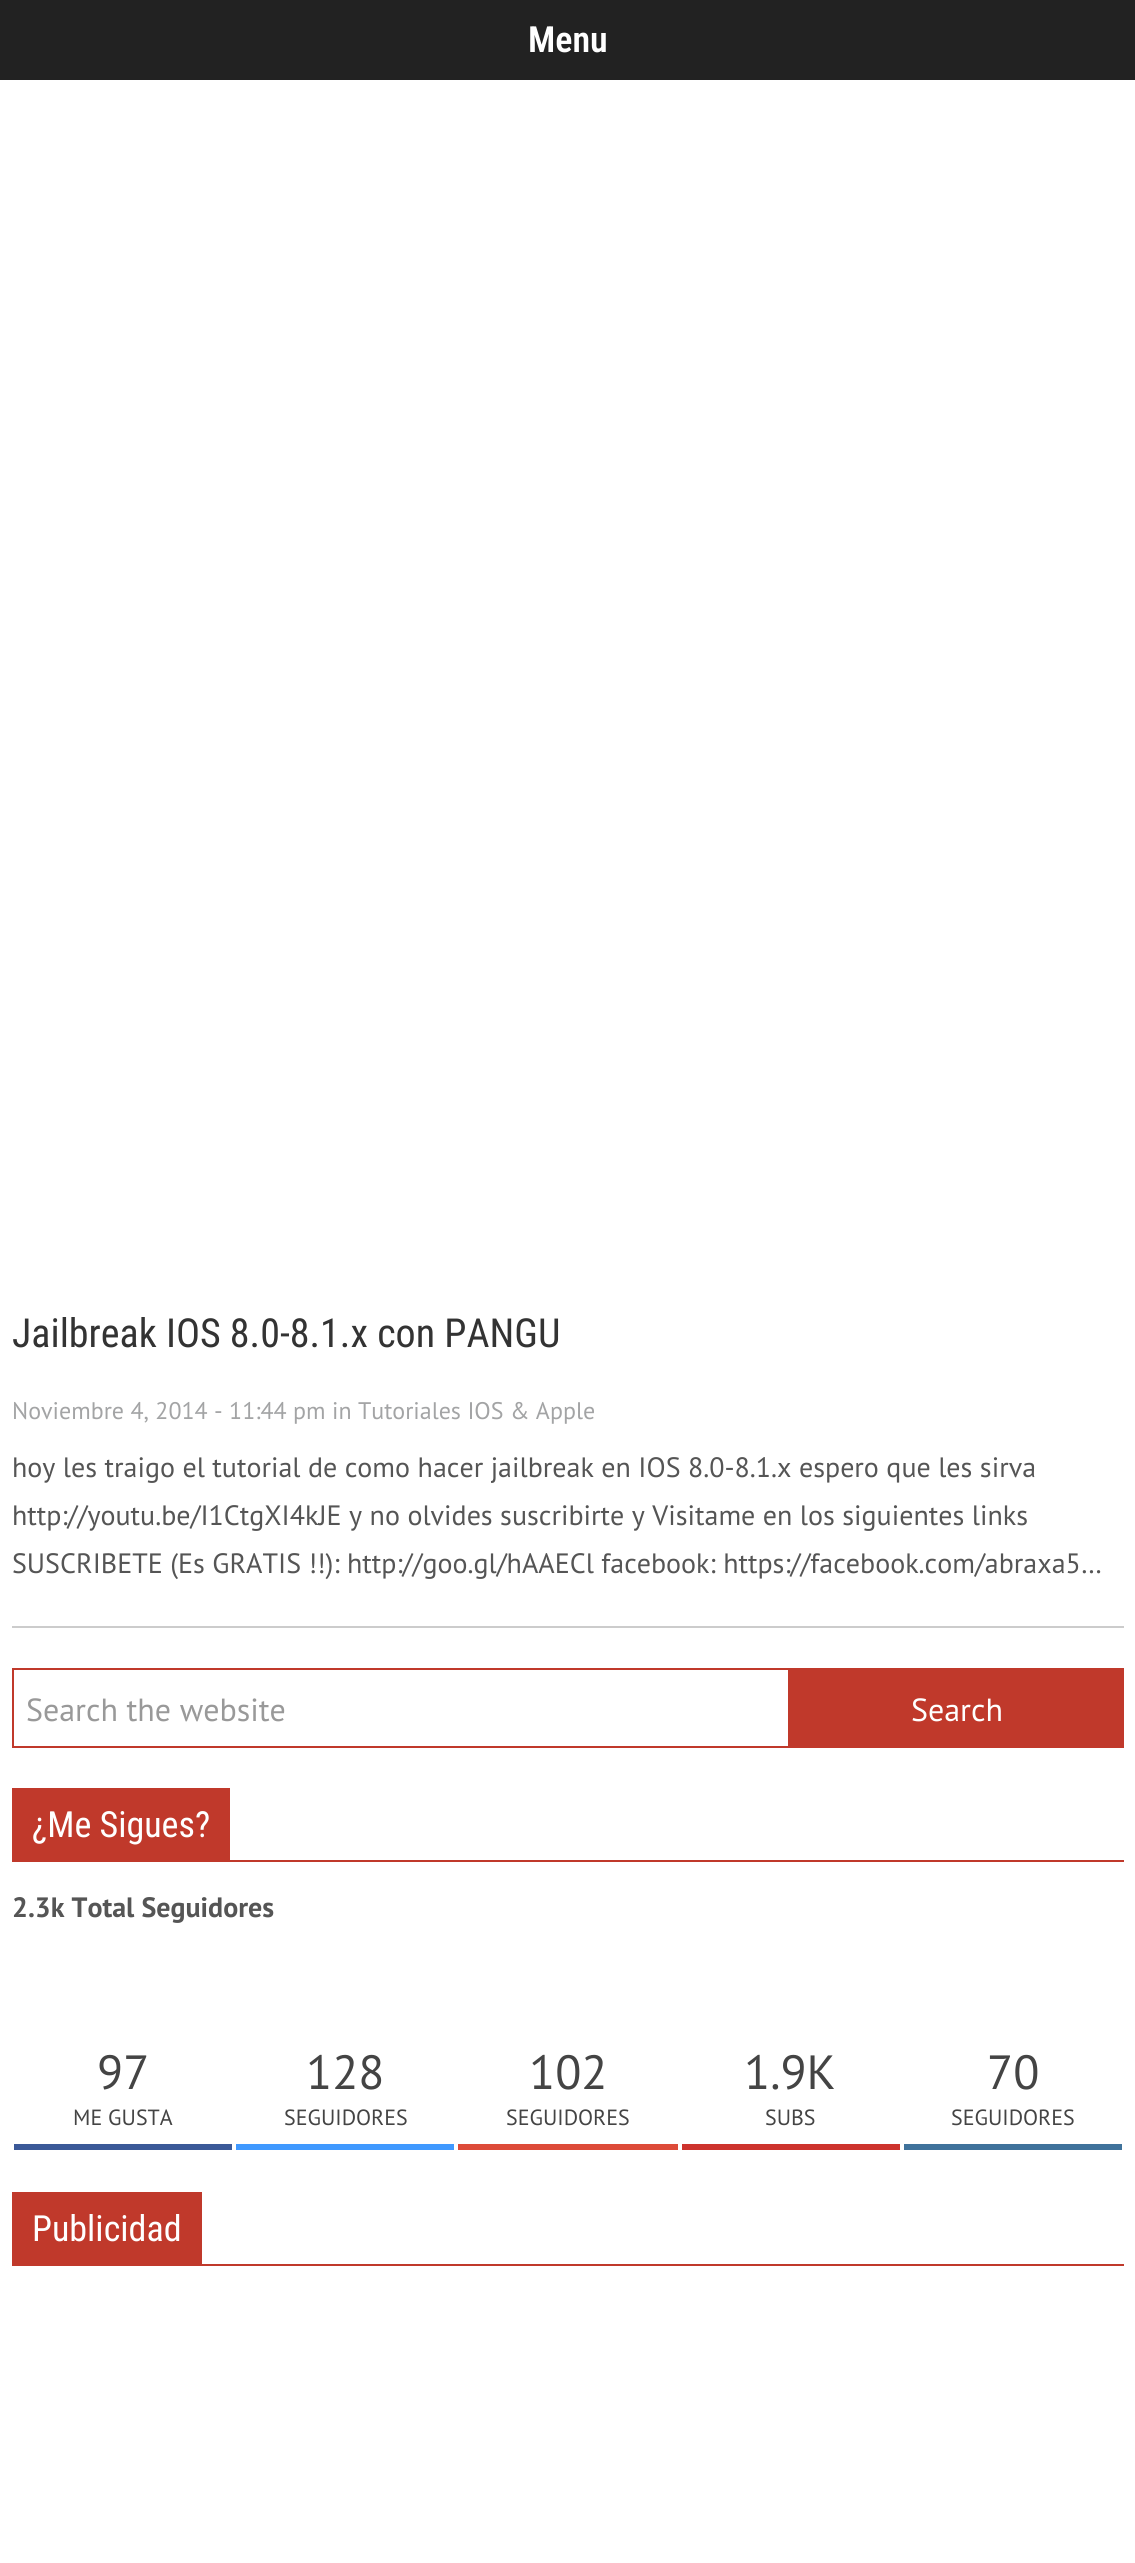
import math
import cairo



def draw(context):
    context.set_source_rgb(1, 1, 1)
    context.paint()
    context.set_source_rgb(34 / 255, 34 / 255, 34 / 255)
    context.rectangle(0, 0, 1135, 80)
    context.fill()
    context.set_source_rgb(204 / 255, 204 / 255, 204 / 255)
    context.rectangle(12, 1626, 1112, 2)
    context.fill()
    context.rectangle(13, 1669, 776, 78)
    context.set_source_rgb(192 / 255, 57 / 255, 43 / 255)
    context.stroke()
    context.rectangle(790, 1668, 334, 80)
    context.fill()
    context.rectangle(12, 1788, 218, 72)
    context.fill()
    context.rectangle(12, 1860, 1112, 2)
    context.fill()
    context.set_source_rgb(59 / 255, 89 / 255, 152 / 255)
    context.rectangle(14, 2144, 218, 6)
    context.fill()
    context.set_source_rgb(64 / 255, 153 / 255, 1)
    context.rectangle(236, 2144, 218, 6)
    context.fill()
    context.set_source_rgb(221 / 255, 75 / 255, 57 / 255)
    context.rectangle(458, 2144, 220, 6)
    context.fill()
    context.set_source_rgb(205 / 255, 51 / 255, 45 / 255)
    context.rectangle(682, 2144, 218, 6)
    context.fill()
    context.set_source_rgb(63 / 255, 114 / 255, 155 / 255)
    context.rectangle(904, 2144, 218, 6)
    context.fill()
    context.set_source_rgb(192 / 255, 57 / 255, 43 / 255)
    context.rectangle(12, 2192, 190, 72)
    context.fill()
    context.rectangle(12, 2264, 1112, 2)
    context.fill()
    context.select_font_face("Roboto Condensed SemiBold")
    context.set_font_size(36)
    context.set_source_rgb(1, 1, 1)
    context.move_to(528, 52)
    context.show_text("Menu")
    context.select_font_face("Roboto Condensed")
    context.set_font_size(40)
    context.set_source_rgb(51 / 255, 51 / 255, 51 / 255)
    context.move_to(12, 1347)
    context.show_text("Jailbreak IOS 8.0-8.1.x con PANGU")
    context.select_font_face("PT Sans")
    context.set_font_size(24)
    context.set_source_rgb(163 / 255, 164 / 255, 165 / 255)
    context.move_to(12, 1419)
    context.show_text("Noviembre 4, 2014 - 11:44 pm in Tutoriales IOS & Apple")
    context.set_font_size(28)
    context.set_source_rgb(85 / 255, 85 / 255, 85 / 255)
    context.move_to(12, 1477)
    context.show_text("hoy les traigo el tutorial de como hacer jailbreak en IOS 8.0-8.1.x espero que les sirva")
    context.move_to(12, 1525)
    context.show_text("http://youtu.be/I1CtgXI4kJE y no olvides suscribirte y Visitame en los siguientes links")
    context.move_to(12, 1573)
    context.show_text("SUSCRIBETE (Es GRATIS !!): http://goo.gl/hAAECl facebook: https://facebook.com/abraxa5…")
    context.set_font_size(32)
    context.set_source_rgb(153 / 255, 153 / 255, 153 / 255)
    context.move_to(26, 1721)
    context.show_text("Search the website")
    context.set_source_rgb(1, 1, 1)
    context.move_to(911, 1721)
    context.show_text("Search")
    context.select_font_face("Roboto Condensed")
    context.set_font_size(36)
    context.move_to(32, 1837)
    context.show_text("¿Me Sigues?")
    context.select_font_face("PT Sans", cairo.FontSlant.NORMAL, cairo.FontWeight.BOLD)
    context.set_font_size(28)
    context.set_source_rgb(85 / 255, 85 / 255, 85 / 255)
    context.move_to(12, 1917)
    context.show_text("2.3k Total Seguidores")
    context.select_font_face("PT Sans")
    context.set_font_size(48)
    context.set_source_rgb(68 / 255, 68 / 255, 68 / 255)
    context.move_to(97, 2089)
    context.show_text("97")
    context.set_font_size(22)
    context.move_to(73, 2125)
    context.show_text("ME GUSTA")
    context.set_font_size(48)
    context.move_to(306, 2089)
    context.show_text("128")
    context.set_font_size(22)
    context.move_to(284, 2125)
    context.show_text("SEGUIDORES")
    context.set_font_size(48)
    context.move_to(529, 2089)
    context.show_text("102")
    context.set_font_size(22)
    context.move_to(506, 2125)
    context.show_text("SEGUIDORES")
    context.set_font_size(48)
    context.move_to(744, 2089)
    context.show_text("1.9K")
    context.set_font_size(22)
    context.move_to(765, 2125)
    context.show_text("SUBS")
    context.set_font_size(48)
    context.move_to(987, 2089)
    context.show_text("70")
    context.set_font_size(22)
    context.move_to(951, 2125)
    context.show_text("SEGUIDORES")
    context.select_font_face("Roboto Condensed")
    context.set_font_size(36)
    context.set_source_rgb(1, 1, 1)
    context.move_to(32, 2241)
    context.show_text("Publicidad")


surface = cairo.ImageSurface(cairo.Format.RGB24, 1135, 2563)
context = cairo.Context(surface)
options = cairo.FontOptions()
options.set_hint_metrics(cairo.HintMetrics.OFF)
options.set_hint_style(cairo.HintStyle.NONE)
context.set_font_options(options)
context.set_miter_limit(4)
draw(context)
surface.write_to_png("out.png")
